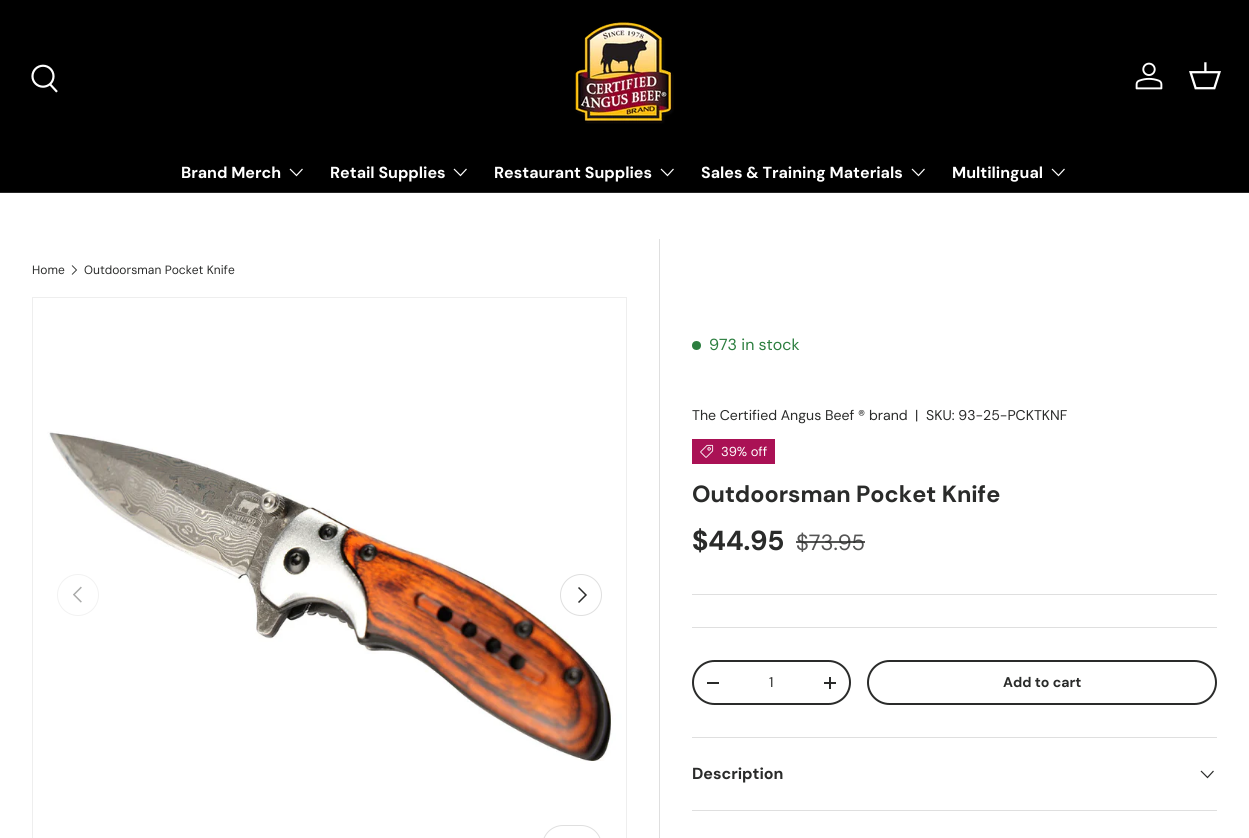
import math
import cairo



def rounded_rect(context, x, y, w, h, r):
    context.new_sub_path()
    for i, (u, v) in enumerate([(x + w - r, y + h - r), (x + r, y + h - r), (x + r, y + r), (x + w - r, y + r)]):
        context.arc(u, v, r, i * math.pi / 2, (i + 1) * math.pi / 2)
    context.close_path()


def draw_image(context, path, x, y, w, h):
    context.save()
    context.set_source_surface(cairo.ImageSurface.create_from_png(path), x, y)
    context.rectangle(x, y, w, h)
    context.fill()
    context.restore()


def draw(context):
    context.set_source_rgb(1, 1, 1)
    context.paint()
    context.set_source_rgb(0, 0, 0)
    context.rectangle(0, 0, 1249, 192)
    context.fill()
    context.set_source_rgb(38 / 255, 38 / 255, 38 / 255)
    context.rectangle(0, 192, 1249, 1)
    context.fill()
    draw_image(context, "images/1.png", 31, 64, 27, 29)
    draw_image(context, "images/2.png", 575, 22, 99, 102)
    draw_image(context, "images/3.png", 1135, 62, 28, 28)
    draw_image(context, "images/4.png", 1189, 62, 32, 28)
    context.new_path()
    context.move_to(302.5, 169)
    context.line_to(296.5, 175.5)
    context.line_to(290, 169)
    context.set_source_rgb(1, 1, 1)
    context.set_line_width(1.2)
    context.stroke()
    context.new_path()
    context.move_to(466.5, 169)
    context.line_to(460.5, 175.5)
    context.line_to(454, 169)
    context.stroke()
    context.new_path()
    context.move_to(673.5, 169)
    context.line_to(667.5, 175.5)
    context.line_to(661, 169)
    context.stroke()
    context.new_path()
    context.move_to(924.5, 169)
    context.line_to(918.5, 175.5)
    context.line_to(912, 169)
    context.stroke()
    context.new_path()
    context.move_to(1064.5, 169)
    context.line_to(1058.5, 175.5)
    context.line_to(1052, 169)
    context.stroke()
    context.new_path()
    context.move_to(72, 265.5)
    context.line_to(76.5, 270)
    context.line_to(72, 274.5)
    context.set_source_rgb(42 / 255, 43 / 255, 42 / 255)
    context.set_line_width(0.9)
    context.stroke()
    context.rectangle(32.5, 297.5, 594, 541)
    context.set_source_rgb(238 / 255, 238 / 255, 238 / 255)
    context.set_line_width(1)
    context.stroke()
    draw_image(context, "images/5.png", 33, 298, 593, 540)
    context.arc(78, 595, 20.5, 0, 2 * math.pi)
    context.set_source_rgb(242 / 255, 242 / 255, 242 / 255)
    context.stroke()
    draw_image(context, "images/6.png", 73, 586, 9, 17)
    context.arc(581, 595, 20.5, 0, 2 * math.pi)
    context.set_source_rgb(223 / 255, 223 / 255, 223 / 255)
    context.stroke()
    context.new_path()
    context.move_to(578.5, 587.5)
    context.line_to(586, 595)
    context.line_to(578.5, 602.5)
    context.set_source_rgb(42 / 255, 43 / 255, 42 / 255)
    context.set_line_width(1.5)
    context.stroke()
    rounded_rect(context, 542.5, 825.5, 59, 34, 20.5)
    context.set_source_rgb(223 / 255, 223 / 255, 223 / 255)
    context.set_line_width(1)
    context.stroke()
    context.rectangle(659, 239, 1, 599)
    context.fill()
    context.set_source_rgb(44 / 255, 126 / 255, 63 / 255)
    context.arc(696.5, 345.5, 4.5, 0, 2 * math.pi)
    context.fill()
    context.set_source_rgb(170 / 255, 17 / 255, 85 / 255)
    context.rectangle(692, 439, 83, 25)
    context.fill()
    draw_image(context, "images/7.png", 700, 444, 14, 14)
    context.set_source_rgb(223 / 255, 223 / 255, 223 / 255)
    context.rectangle(692, 594, 525, 1)
    context.fill()
    context.rectangle(692, 627, 525, 1)
    context.fill()
    rounded_rect(context, 693, 661, 157, 43, 21.5)
    context.set_source_rgb(42 / 255, 43 / 255, 42 / 255)
    context.set_line_width(2)
    context.stroke()
    context.rectangle(707, 682, 12, 2)
    context.fill()
    context.rectangle(824, 682, 12, 2)
    context.fill()
    context.rectangle(829, 677, 2, 12)
    context.fill()
    rounded_rect(context, 868, 661, 348, 43, 21.5)
    context.stroke()
    context.set_source_rgb(223 / 255, 223 / 255, 223 / 255)
    context.rectangle(692, 737, 525, 1)
    context.fill()
    context.rectangle(692, 810, 525, 1)
    context.fill()
    context.new_path()
    context.move_to(1213.5, 771)
    context.line_to(1207.5, 777.5)
    context.line_to(1201, 771)
    context.set_source_rgb(42 / 255, 43 / 255, 42 / 255)
    context.set_line_width(1.2)
    context.stroke()
    context.select_font_face("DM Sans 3", cairo.FontSlant.NORMAL, cairo.FontWeight.BOLD)
    context.set_font_size(16)
    context.set_source_rgb(1, 1, 1)
    context.move_to(181, 178)
    context.show_text("Brand Merch")
    context.move_to(330, 178)
    context.show_text("Retail Supplies")
    context.move_to(494, 178)
    context.show_text("Restaurant Supplies")
    context.move_to(701, 178)
    context.show_text("Sales & Training Materials")
    context.move_to(952, 178)
    context.show_text("Multilingual")
    context.select_font_face("DM Sans")
    context.set_font_size(12)
    context.set_source_rgb(42 / 255, 43 / 255, 42 / 255)
    context.move_to(32, 274)
    context.show_text("Home")
    context.move_to(84, 274)
    context.show_text("Outdoorsman Pocket Knife")
    context.select_font_face("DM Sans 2")
    context.set_font_size(16)
    context.set_source_rgb(44 / 255, 126 / 255, 63 / 255)
    context.move_to(709, 350)
    context.show_text("973 in stock")
    context.select_font_face("DM Sans 3")
    context.set_font_size(14.1)
    context.set_source_rgb(42 / 255, 43 / 255, 42 / 255)
    context.move_to(692, 420)
    context.show_text("The Certified Angus Beef ® brand")
    context.move_to(915, 420)
    context.show_text("|")
    context.move_to(926, 420)
    context.show_text("SKU: 93-25-PCKTKNF")
    context.select_font_face("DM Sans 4")
    context.set_font_size(13)
    context.set_source_rgb(1, 1, 1)
    context.move_to(721, 456)
    context.show_text("39% off")
    context.select_font_face("DM Sans", cairo.FontSlant.NORMAL, cairo.FontWeight.BOLD)
    context.set_font_size(23.4)
    context.set_source_rgb(42 / 255, 43 / 255, 42 / 255)
    context.move_to(692, 502)
    context.show_text("Outdoorsman Pocket Knife")
    context.select_font_face("DM Sans 2", cairo.FontSlant.NORMAL, cairo.FontWeight.BOLD)
    context.set_font_size(27.5)
    context.move_to(692, 550)
    context.show_text("$44.95")
    context.select_font_face("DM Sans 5")
    context.set_font_size(22)
    context.set_source_rgb(85 / 255, 85 / 255, 85 / 255)
    context.move_to(796, 550)
    context.show_text("$73.95")
    context.set_source_rgba(42 / 255, 43 / 255, 42 / 255, 0.8)
    context.rectangle(796, 541, 69, 2)
    context.fill()
    context.select_font_face("DM Sans 3")
    context.set_font_size(14.1)
    context.set_source_rgb(42 / 255, 43 / 255, 42 / 255)
    context.move_to(769, 687)
    context.show_text("1")
    context.select_font_face("DM Sans 4", cairo.FontSlant.NORMAL, cairo.FontWeight.BOLD)
    context.move_to(1003, 687)
    context.show_text("Add to cart")
    context.select_font_face("DM Sans 3", cairo.FontSlant.NORMAL, cairo.FontWeight.BOLD)
    context.set_font_size(16)
    context.move_to(692, 779)
    context.show_text("Description")


surface = cairo.ImageSurface(cairo.Format.RGB24, 1249, 838)
context = cairo.Context(surface)
options = cairo.FontOptions()
options.set_hint_metrics(cairo.HintMetrics.OFF)
options.set_hint_style(cairo.HintStyle.NONE)
context.set_font_options(options)
context.set_miter_limit(4)
draw(context)
surface.write_to_png("out.png")
